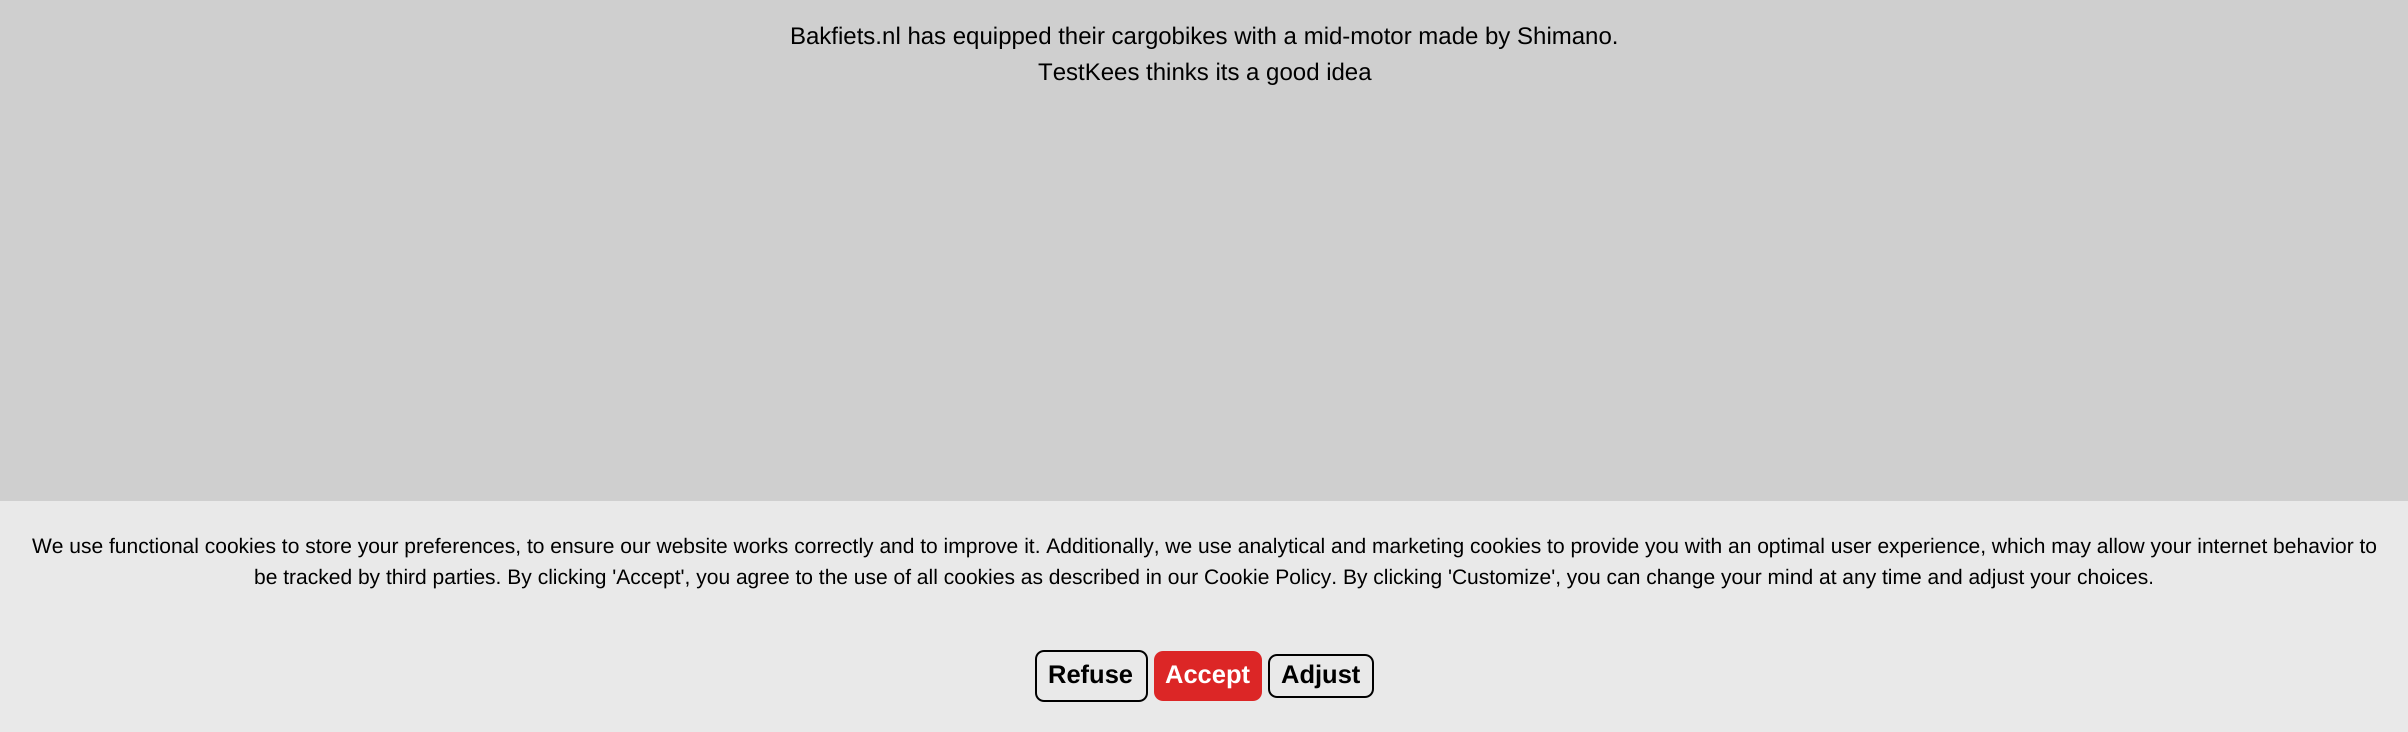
import math
import cairo



def rounded_rect(context, x, y, w, h, r):
    context.new_sub_path()
    for i, (u, v) in enumerate([(x + w - r, y + h - r), (x + r, y + h - r), (x + r, y + r), (x + w - r, y + r)]):
        context.arc(u, v, r, i * math.pi / 2, (i + 1) * math.pi / 2)
    context.close_path()


def draw(context):
    context.set_source_rgb(207 / 255, 207 / 255, 207 / 255)
    context.paint()
    context.set_source_rgb(233 / 255, 233 / 255, 233 / 255)
    context.rectangle(0, 501, 2408, 231)
    context.fill()
    rounded_rect(context, 1036, 651, 111, 50, 8)
    context.set_source_rgb(0, 0, 0)
    context.stroke()
    context.set_source_rgb(220 / 255, 38 / 255, 38 / 255)
    rounded_rect(context, 1154, 651, 108, 50, 9)
    context.fill()
    rounded_rect(context, 1269, 655, 104, 42, 8)
    context.set_source_rgb(0, 0, 0)
    context.stroke()
    context.select_font_face("Liberation Sans")
    context.set_font_size(24)
    context.move_to(790, 44)
    context.show_text("Bakfiets.nl has equipped their cargobikes with a mid-motor made by Shimano.")
    context.move_to(1038, 80)
    context.show_text("TestKees thinks its a good idea")
    context.set_font_size(21)
    context.move_to(32, 553)
    context.show_text("We use functional cookies to store your preferences, to ensure our website works correctly and to improve it. Additionally, we use analytical and marketing cookies to provide you with an optimal user experience, which may allow your internet behavior to")
    context.move_to(254, 584)
    context.show_text("be tracked by third parties. By clicking 'Accept', you agree to the use of all cookies as described in our Cookie Policy. By clicking 'Customize', you can change your mind at any time and adjust your choices.")
    context.select_font_face("Liberation Sans", cairo.FontSlant.NORMAL, cairo.FontWeight.BOLD)
    context.set_font_size(25.5)
    context.move_to(1048, 683)
    context.show_text("Refuse")
    context.set_source_rgb(1, 1, 1)
    context.move_to(1165, 683)
    context.show_text("Accept")
    context.set_source_rgb(0, 0, 0)
    context.move_to(1281, 683)
    context.show_text("Adjust")


surface = cairo.ImageSurface(cairo.Format.RGB24, 2408, 732)
context = cairo.Context(surface)
options = cairo.FontOptions()
options.set_hint_metrics(cairo.HintMetrics.OFF)
options.set_hint_style(cairo.HintStyle.NONE)
context.set_font_options(options)
context.set_miter_limit(4)
draw(context)
surface.write_to_png("out.png")
